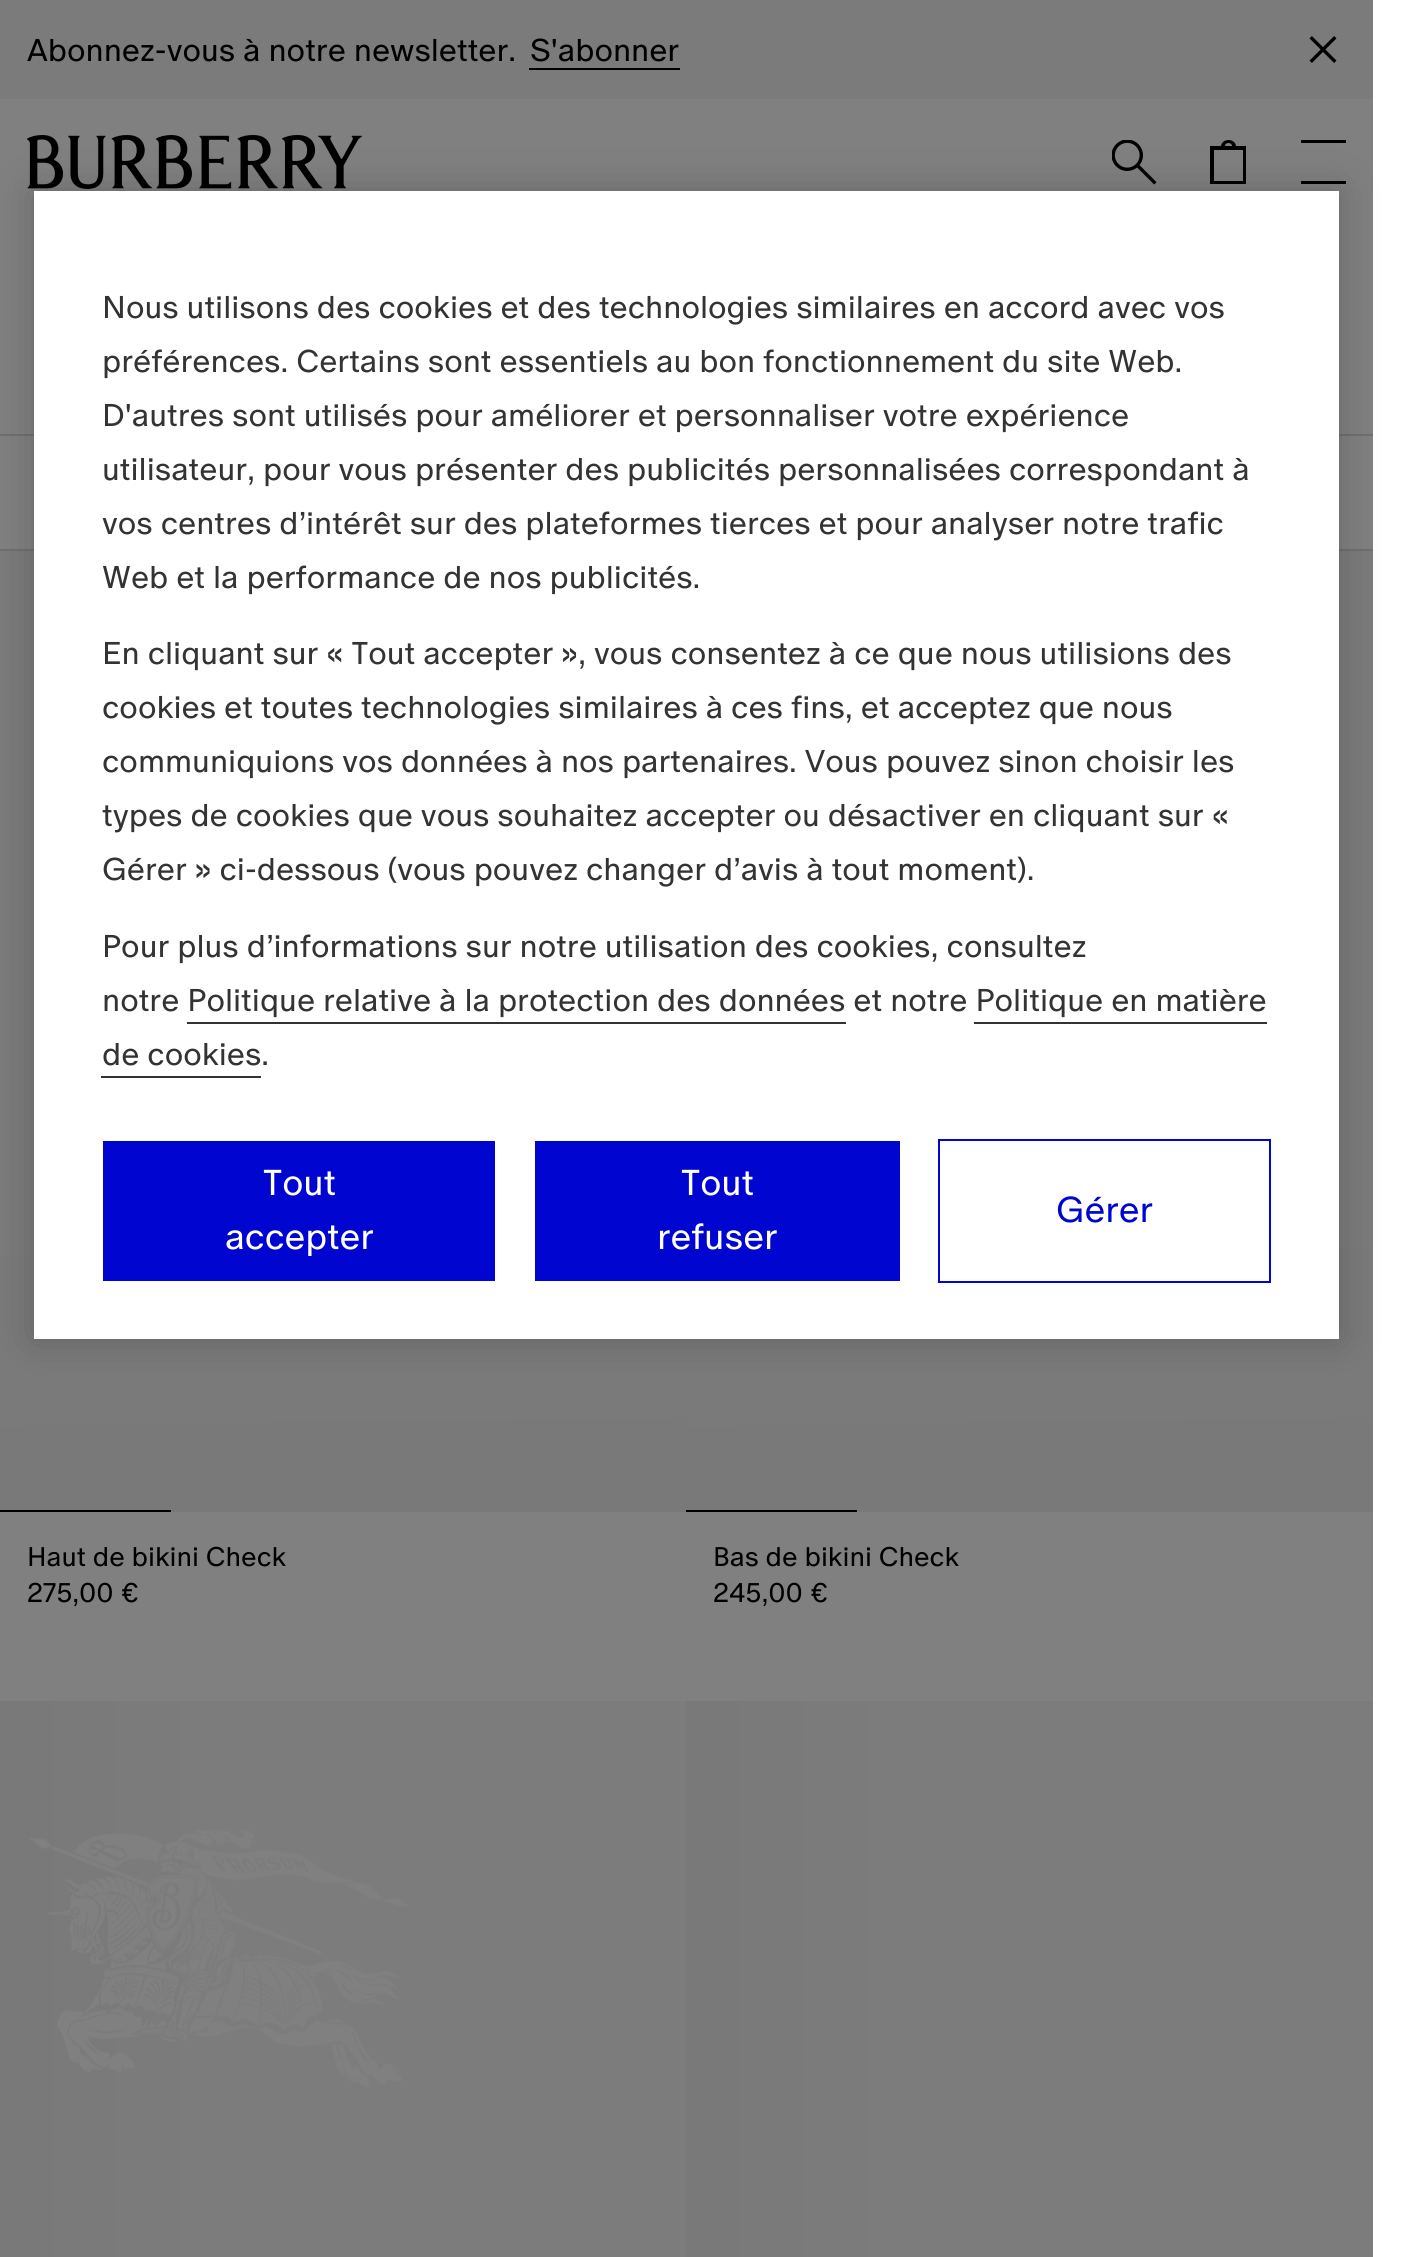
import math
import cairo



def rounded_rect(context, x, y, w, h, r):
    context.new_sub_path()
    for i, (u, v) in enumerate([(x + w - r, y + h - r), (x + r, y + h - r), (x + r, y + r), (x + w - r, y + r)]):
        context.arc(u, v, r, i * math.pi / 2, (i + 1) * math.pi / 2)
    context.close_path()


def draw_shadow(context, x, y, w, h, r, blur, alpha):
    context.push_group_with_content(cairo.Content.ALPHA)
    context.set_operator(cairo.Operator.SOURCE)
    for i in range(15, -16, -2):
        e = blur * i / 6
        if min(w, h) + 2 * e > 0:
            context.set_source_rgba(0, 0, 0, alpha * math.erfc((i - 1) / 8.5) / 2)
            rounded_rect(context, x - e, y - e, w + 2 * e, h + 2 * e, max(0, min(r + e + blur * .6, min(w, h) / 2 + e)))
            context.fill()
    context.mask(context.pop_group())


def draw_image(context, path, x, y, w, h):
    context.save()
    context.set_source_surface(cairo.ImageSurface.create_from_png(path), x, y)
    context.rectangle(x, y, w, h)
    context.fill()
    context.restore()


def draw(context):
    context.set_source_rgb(1, 1, 1)
    context.paint()
    context.set_source_rgb(128 / 255, 128 / 255, 128 / 255)
    context.rectangle(0, 99, 1373, 1602)
    context.fill()
    context.set_source_rgb(123 / 255, 123 / 255, 123 / 255)
    context.rectangle(0, 0, 1373, 99)
    context.fill()
    context.set_source_rgb(0, 0, 0)
    context.rectangle(529, 68, 151, 2)
    context.fill()
    draw_image(context, "images/1.png", 1309, 36, 28, 27)
    draw_image(context, "images/2.png", 27, 135, 335, 54)
    draw_image(context, "images/3.png", 1112, 140, 45, 45)
    context.set_fill_rule(cairo.FillRule.EVEN_ODD)
    context.new_path()
    context.move_to(1225, 146)
    context.curve_to(1225, 142, 1232, 142, 1232, 146)
    context.close_path()
    context.move_to(1221, 146)
    context.curve_to(1222, 138, 1235, 138, 1236, 146)
    context.line_to(1246, 146)
    context.line_to(1246, 184)
    context.line_to(1210, 184)
    context.line_to(1210, 146)
    context.close_path()
    context.move_to(1214, 150)
    context.line_to(1243, 150)
    context.line_to(1243, 181)
    context.line_to(1214, 181)
    context.close_path()
    context.fill()
    context.save()
    context.set_fill_rule(cairo.FillRule.WINDING)
    context.rectangle(1301, 140, 45, 45)
    context.clip()
    context.set_fill_rule(cairo.FillRule.EVEN_ODD)
    context.new_path()
    context.move_to(1300, 143)
    context.line_to(1346, 143)
    context.line_to(1346, 140)
    context.line_to(1300, 140)
    context.close_path()
    context.move_to(1300, 184)
    context.line_to(1346, 184)
    context.line_to(1346, 181)
    context.line_to(1300, 181)
    context.close_path()
    context.fill()
    context.restore()
    context.set_source_rgb(111 / 255, 111 / 255, 111 / 255)
    context.rectangle(0, 434, 1373, 2)
    context.fill()
    context.rectangle(0, 549, 1373, 2)
    context.fill()
    gradient = cairo.LinearGradient(337, 547, 349, 1516)
    gradient.add_color_stop_rgba(0.19, 123 / 255, 123 / 255, 123 / 255, 1)
    gradient.add_color_stop_rgba(0.64, 123 / 255, 123 / 255, 123 / 255, 1)
    gradient.add_color_stop_rgba(0.99, 121 / 255, 121 / 255, 121 / 255, 1)
    context.set_source(gradient)
    context.rectangle(0, 551, 686, 961)
    context.fill()
    context.set_source_rgb(0, 0, 0)
    context.rectangle(0, 1510, 171, 2)
    context.fill()
    gradient = cairo.LinearGradient(1023, 547, 1036, 1516)
    gradient.add_color_stop_rgba(0.19, 123 / 255, 123 / 255, 123 / 255, 1)
    gradient.add_color_stop_rgba(0.64, 123 / 255, 123 / 255, 123 / 255, 1)
    gradient.add_color_stop_rgba(0.99, 121 / 255, 121 / 255, 121 / 255, 1)
    context.set_source(gradient)
    context.rectangle(686, 551, 687, 961)
    context.fill()
    context.set_source_rgb(0, 0, 0)
    context.rectangle(686, 1510, 171, 2)
    context.fill()
    gradient = cairo.LinearGradient(686, 2181, 0, 2181)
    gradient.add_color_stop_rgba(0.37, 124 / 255, 124 / 255, 124 / 255, 1)
    gradient.add_color_stop_rgba(0.69, 124 / 255, 124 / 255, 124 / 255, 1)
    gradient.add_color_stop_rgba(0.97, 121 / 255, 121 / 255, 121 / 255, 1)
    context.set_source(gradient)
    context.rectangle(0, 1701, 686, 556)
    context.fill()
    gradient = cairo.LinearGradient(1373, 2181, 686, 2181)
    gradient.add_color_stop_rgba(0.37, 124 / 255, 124 / 255, 124 / 255, 1)
    gradient.add_color_stop_rgba(0.69, 124 / 255, 124 / 255, 124 / 255, 1)
    gradient.add_color_stop_rgba(0.97, 121 / 255, 121 / 255, 121 / 255, 1)
    context.set_source(gradient)
    context.rectangle(686, 1701, 687, 556)
    context.fill()
    draw_image(context, "images/4.png", 29, 1830, 379, 257)
    context.set_source_rgb(0, 0, 0)
    draw_shadow(context, 34, 191, 1305, 1148, 0, 20, 0.2)
    context.set_source_rgb(1, 1, 1)
    context.rectangle(34, 191, 1305, 1148)
    context.fill()
    context.set_source_rgb(51 / 255, 51 / 255, 51 / 255)
    context.rectangle(187, 1022, 659, 2)
    context.fill()
    context.rectangle(974, 1022, 293, 2)
    context.fill()
    context.rectangle(101, 1076, 160, 2)
    context.fill()
    context.set_source_rgb(0, 6 / 255, 207 / 255)
    context.rectangle(103, 1141, 392, 140)
    context.fill()
    context.rectangle(535, 1141, 365, 140)
    context.fill()
    context.rectangle(939, 1140, 331, 142)
    context.stroke()
    context.select_font_face("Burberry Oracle")
    context.set_font_size(31.5)
    context.set_source_rgb(0, 0, 0)
    context.move_to(27, 61)
    context.show_text("Abonnez-vous à notre newsletter.")
    context.move_to(530, 61)
    context.show_text("S'abonner")
    context.set_font_size(27)
    context.move_to(27, 1566)
    context.show_text("Haut de bikini Check")
    context.move_to(27, 1602)
    context.show_text("275,00 €")
    context.move_to(713, 1566)
    context.show_text("Bas de bikini Check")
    context.move_to(713, 1602)
    context.show_text("245,00 €")
    context.set_font_size(31.5)
    context.set_source_rgb(51 / 255, 51 / 255, 51 / 255)
    context.move_to(102, 318)
    context.show_text("Nous utilisons des cookies et des technologies similaires en accord avec vos")
    context.move_to(102, 372)
    context.show_text("préférences. Certains sont essentiels au bon fonctionnement du site Web.")
    context.move_to(102, 426)
    context.show_text("D'autres sont utilisés pour améliorer et personnaliser votre expérience")
    context.move_to(102, 480)
    context.show_text("utilisateur, pour vous présenter des publicités personnalisées correspondant à")
    context.move_to(102, 534)
    context.show_text("vos centres d’intérêt sur des plateformes tierces et pour analyser notre trafic")
    context.move_to(102, 588)
    context.show_text("Web et la performance de nos publicités.")
    context.move_to(102, 664)
    context.show_text("En cliquant sur « Tout accepter », vous consentez à ce que nous utilisions des")
    context.move_to(102, 718)
    context.show_text("cookies et toutes technologies similaires à ces fins, et acceptez que nous")
    context.move_to(102, 772)
    context.show_text("communiquions vos données à nos partenaires. Vous pouvez sinon choisir les")
    context.move_to(102, 826)
    context.show_text("types de cookies que vous souhaitez accepter ou désactiver en cliquant sur «")
    context.move_to(102, 880)
    context.show_text("Gérer » ci-dessous (vous pouvez changer d’avis à tout moment).")
    context.move_to(102, 957)
    context.show_text("Pour plus d’informations sur notre utilisation des cookies, consultez")
    context.move_to(102, 1011)
    context.show_text("notre Politique relative à la protection des données et notre Politique en matière")
    context.move_to(102, 1065)
    context.show_text("de cookies.")
    context.set_font_size(36)
    context.set_source_rgb(1, 1, 1)
    context.move_to(263, 1195)
    context.show_text("Tout")
    context.move_to(225, 1249)
    context.show_text("accepter")
    context.move_to(681, 1195)
    context.show_text("Tout")
    context.move_to(657, 1249)
    context.show_text("refuser")
    context.set_source_rgb(0, 6 / 255, 207 / 255)
    context.move_to(1056, 1222)
    context.show_text("Gérer")


surface = cairo.ImageSurface(cairo.Format.RGB24, 1406, 2257)
context = cairo.Context(surface)
options = cairo.FontOptions()
options.set_hint_metrics(cairo.HintMetrics.OFF)
options.set_hint_style(cairo.HintStyle.NONE)
context.set_font_options(options)
context.set_miter_limit(4)
draw(context)
surface.write_to_png("out.png")
